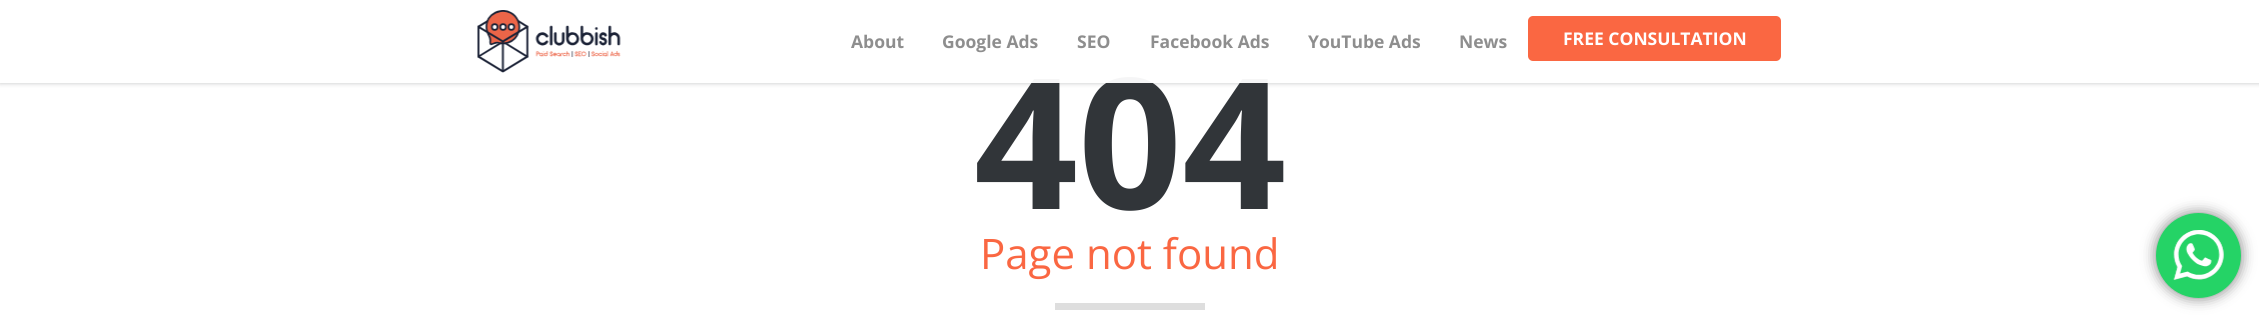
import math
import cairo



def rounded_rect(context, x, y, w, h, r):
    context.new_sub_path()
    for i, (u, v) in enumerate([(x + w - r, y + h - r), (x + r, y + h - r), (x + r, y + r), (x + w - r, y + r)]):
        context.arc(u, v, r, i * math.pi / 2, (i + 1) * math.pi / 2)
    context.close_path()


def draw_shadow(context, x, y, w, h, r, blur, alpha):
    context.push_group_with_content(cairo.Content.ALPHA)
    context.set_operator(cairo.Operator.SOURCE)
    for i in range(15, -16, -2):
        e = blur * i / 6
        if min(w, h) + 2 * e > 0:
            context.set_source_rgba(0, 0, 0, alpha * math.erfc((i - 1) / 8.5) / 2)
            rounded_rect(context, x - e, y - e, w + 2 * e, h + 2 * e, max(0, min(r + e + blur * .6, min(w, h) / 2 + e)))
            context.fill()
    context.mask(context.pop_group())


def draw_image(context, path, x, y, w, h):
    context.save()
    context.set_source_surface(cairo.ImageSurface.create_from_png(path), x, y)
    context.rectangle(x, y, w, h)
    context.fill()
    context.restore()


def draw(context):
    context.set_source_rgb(1, 1, 1)
    context.paint()
    context.save()
    context.set_fill_rule(cairo.FillRule.EVEN_ODD)
    context.new_path()
    context.move_to(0, 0)
    context.line_to(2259, 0)
    context.line_to(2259, 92)
    context.line_to(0, 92)
    context.close_path()
    context.move_to(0, 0)
    context.line_to(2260, 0)
    context.line_to(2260, 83)
    context.line_to(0, 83)
    context.close_path()
    context.clip()
    context.set_source_rgb(49 / 255, 53 / 255, 57 / 255)
    draw_shadow(context, 0, 0, 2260, 83, 0, 2.5, 0.3)
    context.restore()
    draw_image(context, "images/1.png", 477, 10, 144, 63)
    context.set_source_rgb(250 / 255, 103 / 255, 66 / 255)
    rounded_rect(context, 1528, 16, 253, 45, 5)
    context.fill()
    context.set_source_rgb(222 / 255, 222 / 255, 222 / 255)
    context.rectangle(1055, 303, 150, 7)
    context.fill()
    context.set_source_rgb(0, 0, 0)
    draw_shadow(context, 2156, 213, 85, 85, 42.5, 7, 0.5)
    context.set_source_rgb(37 / 255, 211 / 255, 102 / 255)
    context.arc(2198.5, 255.5, 42.5, 0, 2 * math.pi)
    context.fill()
    draw_image(context, "images/2.png", 2173, 230, 51, 50)
    context.select_font_face("Open Sans", cairo.FontSlant.NORMAL, cairo.FontWeight.BOLD)
    context.set_font_size(17.5)
    context.set_source_rgb(142 / 255, 142 / 255, 142 / 255)
    context.move_to(851, 48)
    context.show_text("About")
    context.move_to(942, 48)
    context.show_text("Google Ads")
    context.move_to(1077, 48)
    context.show_text("SEO")
    context.move_to(1150, 48)
    context.show_text("Facebook Ads")
    context.move_to(1308, 48)
    context.show_text("YouTube Ads")
    context.move_to(1459, 48)
    context.show_text("News")
    context.set_source_rgb(1, 1, 1)
    context.move_to(1563, 45)
    context.show_text("FREE CONSULTATION")
    context.set_font_size(182)
    context.set_source_rgb(49 / 255, 53 / 255, 57 / 255)
    context.move_to(974, 209)
    context.show_text("404")
    context.set_source_rgba(1, 1, 1, 0.95)
    context.rectangle(0, 77, 2259, 6)
    context.fill()
    context.select_font_face("Open Sans")
    context.set_font_size(42)
    context.set_source_rgb(250 / 255, 103 / 255, 66 / 255)
    context.move_to(980, 269)
    context.show_text("Page not found")


surface = cairo.ImageSurface(cairo.Format.RGB24, 2259, 316)
context = cairo.Context(surface)
options = cairo.FontOptions()
options.set_hint_metrics(cairo.HintMetrics.OFF)
options.set_hint_style(cairo.HintStyle.NONE)
context.set_font_options(options)
context.set_miter_limit(4)
draw(context)
surface.write_to_png("out.png")
